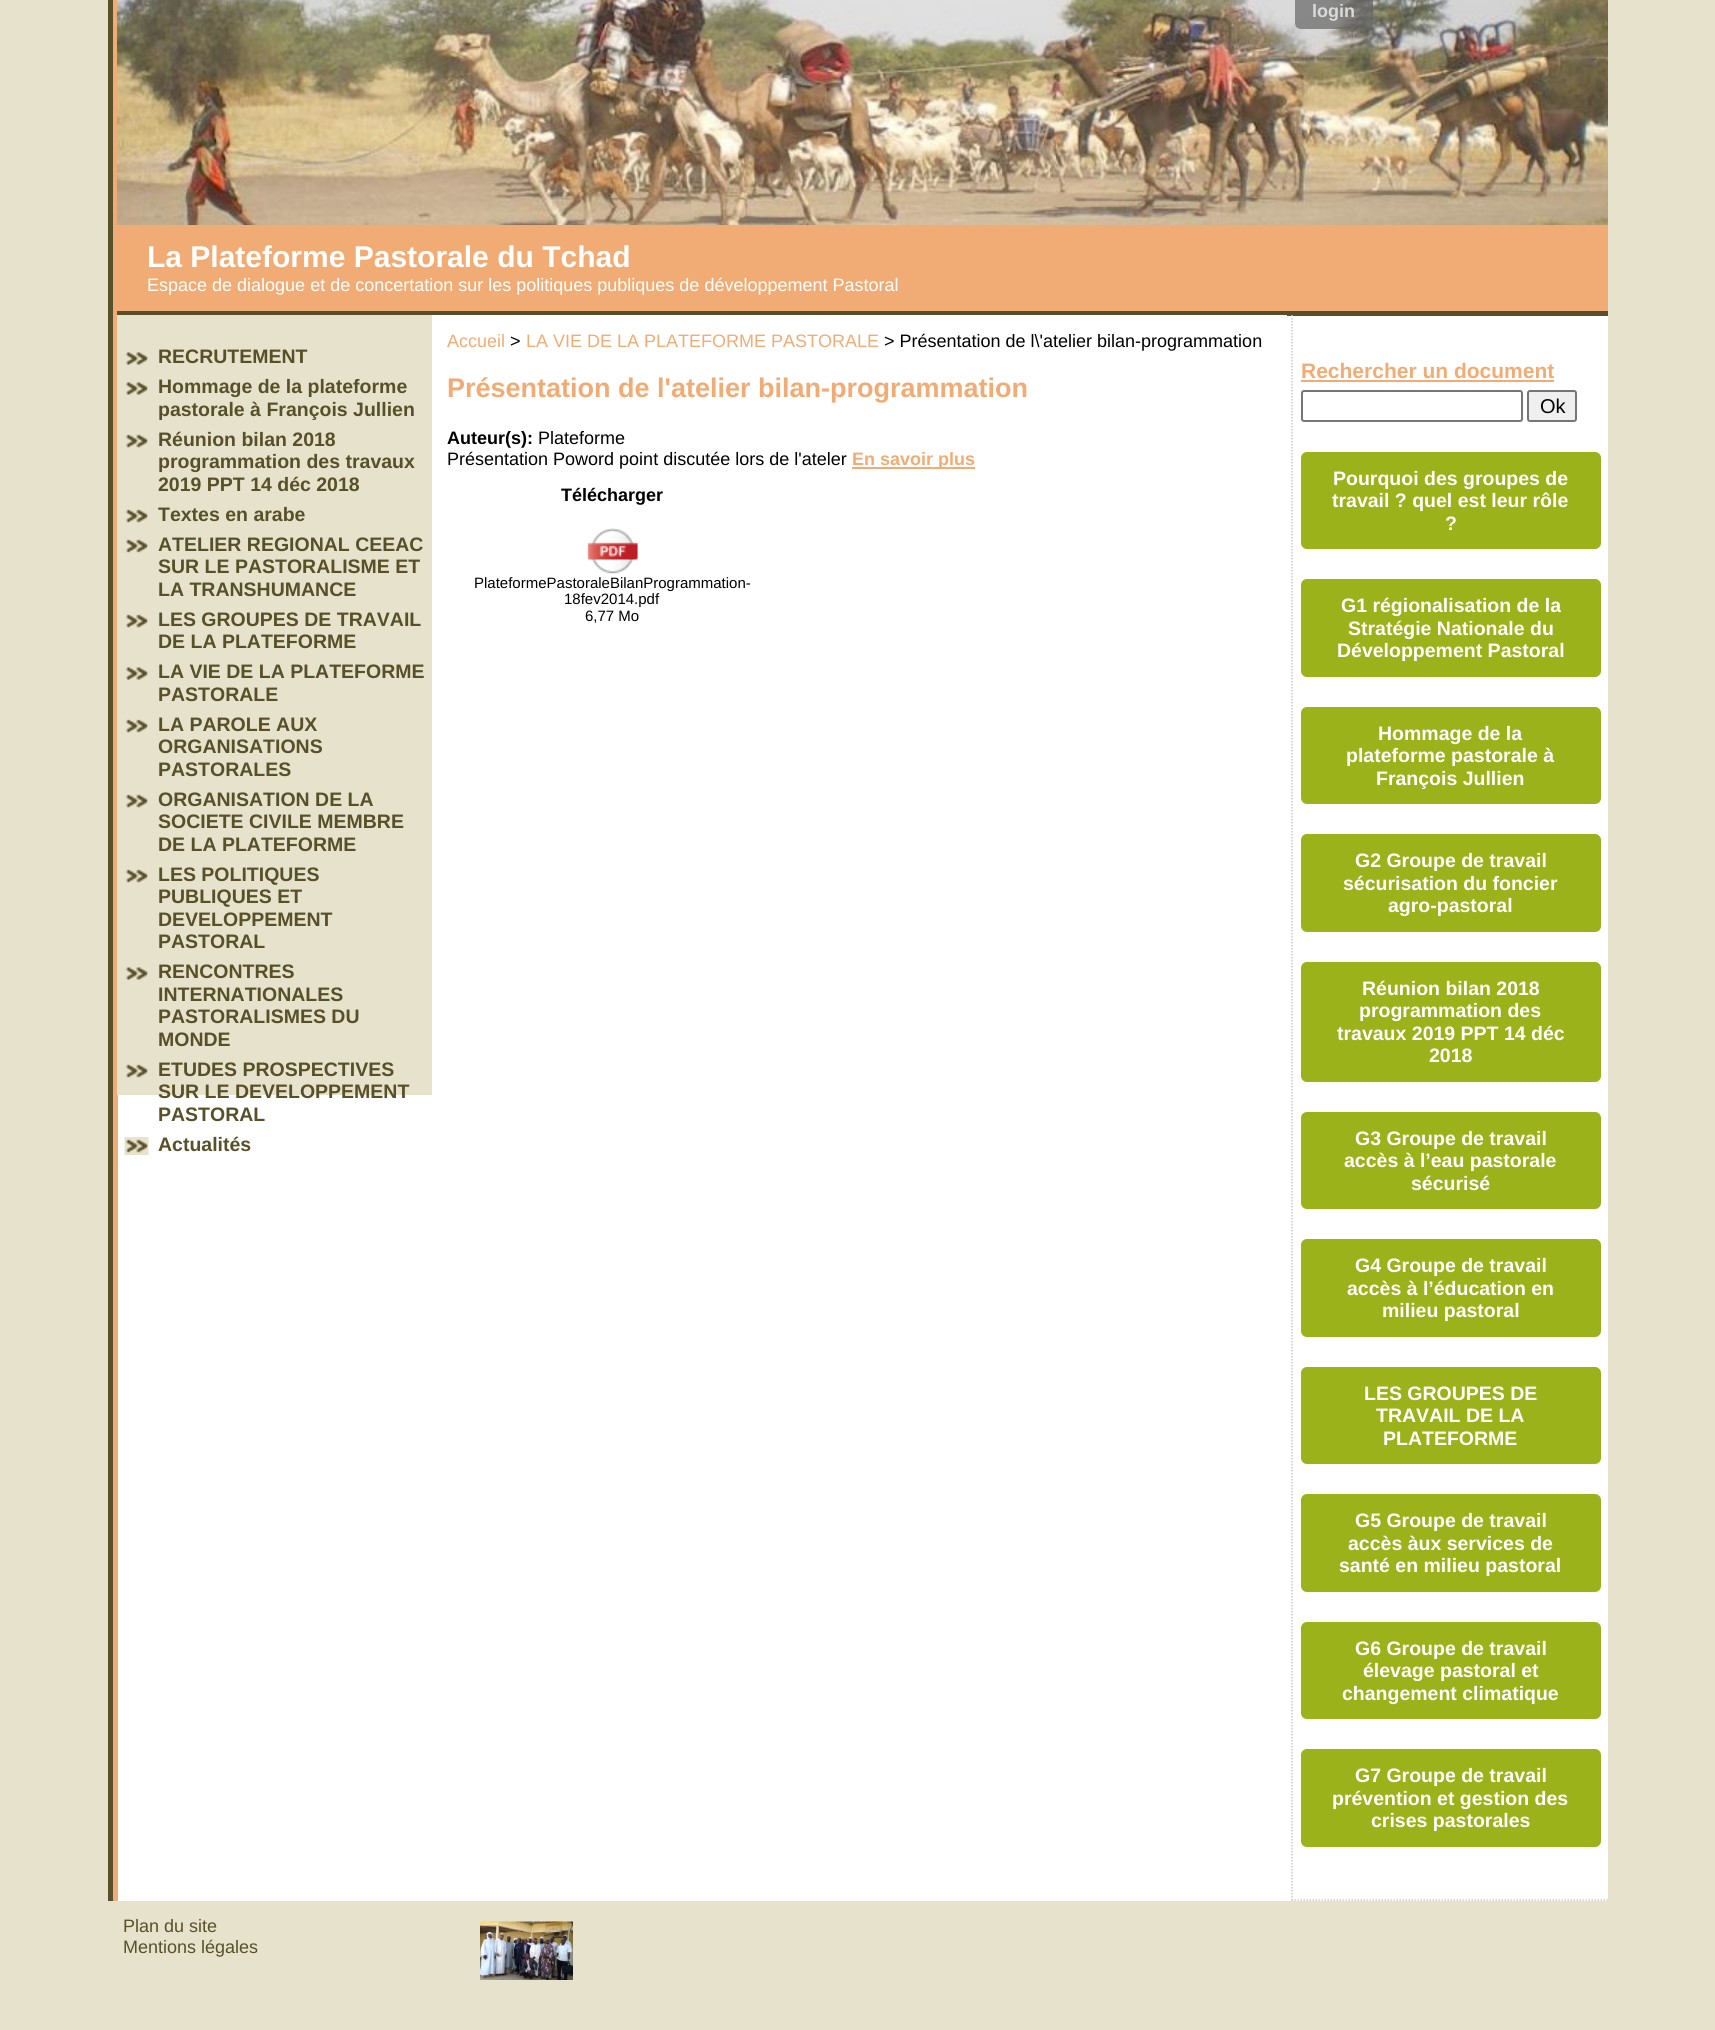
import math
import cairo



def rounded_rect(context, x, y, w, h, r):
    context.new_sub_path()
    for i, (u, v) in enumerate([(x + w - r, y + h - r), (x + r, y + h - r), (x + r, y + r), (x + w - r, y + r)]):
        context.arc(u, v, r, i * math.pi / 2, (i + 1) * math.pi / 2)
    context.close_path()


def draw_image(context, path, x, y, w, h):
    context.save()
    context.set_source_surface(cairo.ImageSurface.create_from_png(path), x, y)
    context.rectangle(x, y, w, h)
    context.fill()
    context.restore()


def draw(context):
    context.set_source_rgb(231 / 255, 226 / 255, 204 / 255)
    context.paint()
    context.set_source_rgb(241 / 255, 172 / 255, 117 / 255)
    context.rectangle(113, 0, 5, 1901)
    context.fill()
    draw_image(context, "images/2.png", 117, 0, 1491, 225)
    context.set_source_rgba(102 / 255, 102 / 255, 102 / 255, 0.7)
    context.new_path()
    context.move_to(1295, -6)
    context.line_to(1373, -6)
    context.line_to(1373, 23)
    context.curve_to(1373, 26.5, 1370.5, 29, 1367, 29)
    context.line_to(1301, 29)
    context.curve_to(1297.5, 29, 1295, 26.5, 1295, 23)
    context.close_path()
    context.fill()
    draw_image(context, "images/1.png", 480, 1921, 93, 59)
    context.set_source_rgb(88 / 255, 80 / 255, 44 / 255)
    context.rectangle(108, 0, 5, 1901)
    context.fill()
    context.set_source_rgb(1, 1, 1)
    context.rectangle(118, 316, 1490, 1585)
    context.fill()
    context.set_source_rgb(241 / 255, 172 / 255, 117 / 255)
    context.rectangle(118, 225, 1490, 86)
    context.fill()
    context.set_source_rgb(88 / 255, 80 / 255, 44 / 255)
    context.rectangle(117, 311, 1491, 5)
    context.fill()
    context.set_source_rgb(231 / 255, 226 / 255, 204 / 255)
    context.rectangle(117, 315, 315, 780)
    context.fill()
    draw_image(context, "images/3.png", 125, 352, 24, 13)
    draw_image(context, "images/3.png", 125, 382, 24, 13)
    draw_image(context, "images/4.png", 125, 434, 24, 14)
    draw_image(context, "images/4.png", 125, 509, 24, 14)
    draw_image(context, "images/4.png", 125, 539, 24, 14)
    draw_image(context, "images/4.png", 125, 614, 24, 14)
    draw_image(context, "images/3.png", 125, 667, 24, 13)
    draw_image(context, "images/4.png", 125, 719, 24, 14)
    draw_image(context, "images/4.png", 125, 794, 24, 14)
    draw_image(context, "images/4.png", 125, 869, 24, 14)
    draw_image(context, "images/3.png", 125, 967, 24, 13)
    draw_image(context, "images/4.png", 125, 1064, 24, 14)
    draw_image(context, "images/5.png", 124, 1137, 25, 18)
    context.set_source_rgb(1, 1, 1)
    context.rectangle(432, 315, 855, 1)
    context.fill()
    context.set_source_rgb(241 / 255, 172 / 255, 117 / 255)
    context.rectangle(852, 467, 123, 2)
    context.fill()
    draw_image(context, "images/6.png", 587, 528, 51, 46)
    context.new_path()
    context.move_to(1291.5, 1900)
    context.line_to(1608, 1900)
    context.set_source_rgb(204 / 255, 204 / 255, 204 / 255)
    context.set_line_width(1.5)
    context.set_dash([1.5, 1.5])
    context.stroke()
    context.new_path()
    context.move_to(1292, 315)
    context.line_to(1292, 1900.5)
    context.stroke()
    context.set_source_rgb(241 / 255, 172 / 255, 117 / 255)
    context.rectangle(1301, 380, 253, 2)
    context.fill()
    rounded_rect(context, 1302, 391, 220, 30, 2)
    context.set_source_rgb(118 / 255, 118 / 255, 118 / 255)
    context.set_line_width(2)
    context.set_dash([])
    context.stroke()
    context.set_source_rgb(239 / 255, 239 / 255, 239 / 255)
    rounded_rect(context, 1528, 391, 48, 30, 2)
    context.fill_preserve()
    context.set_source_rgb(118 / 255, 118 / 255, 118 / 255)
    context.stroke()
    context.set_source_rgb(155 / 255, 178 / 255, 26 / 255)
    rounded_rect(context, 1301, 452, 300, 97, 6)
    context.fill()
    rounded_rect(context, 1301, 579, 300, 98, 6)
    context.fill()
    rounded_rect(context, 1301, 707, 300, 97, 6)
    context.fill()
    rounded_rect(context, 1301, 834, 300, 98, 6)
    context.fill()
    rounded_rect(context, 1301, 962, 300, 120, 6)
    context.fill()
    rounded_rect(context, 1301, 1112, 300, 97, 6)
    context.fill()
    rounded_rect(context, 1301, 1239, 300, 98, 6)
    context.fill()
    rounded_rect(context, 1301, 1367, 300, 97, 6)
    context.fill()
    rounded_rect(context, 1301, 1494, 300, 98, 6)
    context.fill()
    rounded_rect(context, 1301, 1622, 300, 97, 6)
    context.fill()
    rounded_rect(context, 1301, 1749, 300, 98, 6)
    context.fill()
    context.select_font_face("Liberation Sans", cairo.FontSlant.NORMAL, cairo.FontWeight.BOLD)
    context.set_font_size(18)
    context.set_source_rgb(218 / 255, 218 / 255, 218 / 255)
    context.move_to(1312, 17)
    context.show_text("login")
    context.select_font_face("Liberation Sans")
    context.set_source_rgb(88 / 255, 80 / 255, 41 / 255)
    context.move_to(123, 1932)
    context.show_text("Plan du site")
    context.move_to(123, 1953)
    context.show_text("Mentions légales")
    context.select_font_face("Liberation Sans", cairo.FontSlant.NORMAL, cairo.FontWeight.BOLD)
    context.set_font_size(30)
    context.set_source_rgb(1, 1, 1)
    context.move_to(147, 267)
    context.show_text("La Plateforme Pastorale du Tchad")
    context.select_font_face("Liberation Sans")
    context.set_font_size(18)
    context.move_to(147, 291)
    context.show_text("Espace de dialogue et de concertation sur les politiques publiques de développement Pastoral")
    context.select_font_face("Liberation Sans", cairo.FontSlant.NORMAL, cairo.FontWeight.BOLD)
    context.set_font_size(19.5)
    context.set_source_rgb(88 / 255, 80 / 255, 41 / 255)
    context.move_to(158, 363)
    context.show_text("RECRUTEMENT")
    context.move_to(158, 393)
    context.show_text("Hommage de la plateforme")
    context.move_to(158, 416)
    context.show_text("pastorale à François Jullien")
    context.move_to(158, 446)
    context.show_text("Réunion bilan 2018")
    context.move_to(158, 468)
    context.show_text("programmation des travaux")
    context.move_to(158, 491)
    context.show_text("2019 PPT 14 déc 2018")
    context.move_to(158, 521)
    context.show_text("Textes en arabe")
    context.move_to(158, 551)
    context.show_text("ATELIER REGIONAL CEEAC")
    context.move_to(158, 573)
    context.show_text("SUR LE PASTORALISME ET")
    context.move_to(158, 596)
    context.show_text("LA TRANSHUMANCE")
    context.move_to(158, 626)
    context.show_text("LES GROUPES DE TRAVAIL")
    context.move_to(158, 648)
    context.show_text("DE LA PLATEFORME")
    context.move_to(158, 678)
    context.show_text("LA VIE DE LA PLATEFORME")
    context.move_to(158, 701)
    context.show_text("PASTORALE")
    context.move_to(158, 731)
    context.show_text("LA PAROLE AUX")
    context.move_to(158, 753)
    context.show_text("ORGANISATIONS")
    context.move_to(158, 776)
    context.show_text("PASTORALES")
    context.move_to(158, 806)
    context.show_text("ORGANISATION DE LA")
    context.move_to(158, 828)
    context.show_text("SOCIETE CIVILE MEMBRE")
    context.move_to(158, 851)
    context.show_text("DE LA PLATEFORME")
    context.move_to(158, 881)
    context.show_text("LES POLITIQUES")
    context.move_to(158, 903)
    context.show_text("PUBLIQUES ET")
    context.move_to(158, 926)
    context.show_text("DEVELOPPEMENT")
    context.move_to(158, 948)
    context.show_text("PASTORAL")
    context.move_to(158, 978)
    context.show_text("RENCONTRES")
    context.move_to(158, 1001)
    context.show_text("INTERNATIONALES")
    context.move_to(158, 1023)
    context.show_text("PASTORALISMES DU")
    context.move_to(158, 1046)
    context.show_text("MONDE")
    context.move_to(158, 1076)
    context.show_text("ETUDES PROSPECTIVES")
    context.move_to(158, 1098)
    context.show_text("SUR LE DEVELOPPEMENT")
    context.move_to(158, 1121)
    context.show_text("PASTORAL")
    context.move_to(158, 1151)
    context.show_text("Actualités")
    context.select_font_face("Liberation Sans")
    context.set_font_size(18)
    context.set_source_rgb(241 / 255, 172 / 255, 117 / 255)
    context.move_to(447, 347)
    context.show_text("Accueil")
    context.set_source_rgb(0, 0, 0)
    context.move_to(510, 347)
    context.show_text(">")
    context.set_source_rgb(241 / 255, 172 / 255, 117 / 255)
    context.move_to(526, 347)
    context.show_text("LA VIE DE LA PLATEFORME PASTORALE")
    context.set_source_rgb(0, 0, 0)
    context.move_to(884, 347)
    context.show_text("> Présentation de l\\'atelier bilan-programmation")
    context.select_font_face("Liberation Sans", cairo.FontSlant.NORMAL, cairo.FontWeight.BOLD)
    context.set_font_size(27)
    context.set_source_rgb(241 / 255, 172 / 255, 117 / 255)
    context.move_to(447, 397)
    context.show_text("Présentation de l'atelier bilan-programmation")
    context.set_font_size(18)
    context.set_source_rgb(0, 0, 0)
    context.move_to(447, 444)
    context.show_text("Auteur(s):")
    context.select_font_face("Liberation Sans")
    context.move_to(538, 444)
    context.show_text("Plateforme")
    context.move_to(447, 465)
    context.show_text("Présentation Poword point discutée lors de l'ateler")
    context.select_font_face("Liberation Sans", cairo.FontSlant.NORMAL, cairo.FontWeight.BOLD)
    context.set_source_rgb(241 / 255, 172 / 255, 117 / 255)
    context.move_to(852, 465)
    context.show_text("En savoir plus")
    context.set_source_rgb(0, 0, 0)
    context.move_to(561, 501)
    context.show_text("Télécharger")
    context.select_font_face("Liberation Sans")
    context.set_font_size(15)
    context.move_to(474, 588)
    context.show_text("PlateformePastoraleBilanProgrammation-")
    context.move_to(564, 604)
    context.show_text("18fev2014.pdf")
    context.move_to(585, 621)
    context.show_text("6,77 Mo")
    context.select_font_face("Liberation Sans", cairo.FontSlant.NORMAL, cairo.FontWeight.BOLD)
    context.set_font_size(21)
    context.set_source_rgb(241 / 255, 172 / 255, 117 / 255)
    context.move_to(1301, 378)
    context.show_text("Rechercher un document")
    context.select_font_face("Liberation Sans")
    context.set_font_size(20)
    context.set_source_rgb(0, 0, 0)
    context.move_to(1540, 413)
    context.show_text("Ok")
    context.select_font_face("Liberation Sans", cairo.FontSlant.NORMAL, cairo.FontWeight.BOLD)
    context.set_font_size(19.5)
    context.set_source_rgb(1, 1, 1)
    context.move_to(1333, 485)
    context.show_text("Pourquoi des groupes de")
    context.move_to(1332, 507)
    context.show_text("travail ? quel est leur rôle")
    context.move_to(1445, 530)
    context.show_text("?")
    context.move_to(1341, 612)
    context.show_text("G1 régionalisation de la")
    context.move_to(1348, 635)
    context.show_text("Stratégie Nationale du")
    context.move_to(1337, 657)
    context.show_text("Développement Pastoral")
    context.move_to(1378, 740)
    context.show_text("Hommage de la")
    context.move_to(1346, 762)
    context.show_text("plateforme pastorale à")
    context.move_to(1376, 785)
    context.show_text("François Jullien")
    context.move_to(1355, 867)
    context.show_text("G2 Groupe de travail")
    context.move_to(1343, 890)
    context.show_text("sécurisation du foncier")
    context.move_to(1388, 912)
    context.show_text("agro-pastoral")
    context.move_to(1362, 995)
    context.show_text("Réunion bilan 2018")
    context.move_to(1359, 1017)
    context.show_text("programmation des")
    context.move_to(1337, 1040)
    context.show_text("travaux 2019 PPT 14 déc")
    context.move_to(1429, 1062)
    context.show_text("2018")
    context.move_to(1355, 1145)
    context.show_text("G3 Groupe de travail")
    context.move_to(1344, 1167)
    context.show_text("accès à l’eau pastorale")
    context.move_to(1411, 1190)
    context.show_text("sécurisé")
    context.move_to(1355, 1272)
    context.show_text("G4 Groupe de travail")
    context.move_to(1347, 1295)
    context.show_text("accès à l’éducation en")
    context.move_to(1382, 1317)
    context.show_text("milieu pastoral")
    context.move_to(1364, 1400)
    context.show_text("LES GROUPES DE")
    context.move_to(1376, 1422)
    context.show_text("TRAVAIL DE LA")
    context.move_to(1383, 1445)
    context.show_text("PLATEFORME")
    context.move_to(1355, 1527)
    context.show_text("G5 Groupe de travail")
    context.move_to(1348, 1550)
    context.show_text("accès àux services de")
    context.move_to(1339, 1572)
    context.show_text("santé en milieu pastoral")
    context.move_to(1355, 1655)
    context.show_text("G6 Groupe de travail")
    context.move_to(1363, 1677)
    context.show_text("élevage pastoral et")
    context.move_to(1342, 1700)
    context.show_text("changement climatique")
    context.move_to(1355, 1782)
    context.show_text("G7 Groupe de travail")
    context.move_to(1332, 1805)
    context.show_text("prévention et gestion des")
    context.move_to(1371, 1827)
    context.show_text("crises pastorales")


surface = cairo.ImageSurface(cairo.Format.RGB24, 1715, 2030)
context = cairo.Context(surface)
options = cairo.FontOptions()
options.set_hint_metrics(cairo.HintMetrics.OFF)
options.set_hint_style(cairo.HintStyle.NONE)
context.set_font_options(options)
context.set_miter_limit(4)
draw(context)
surface.write_to_png("out.png")
